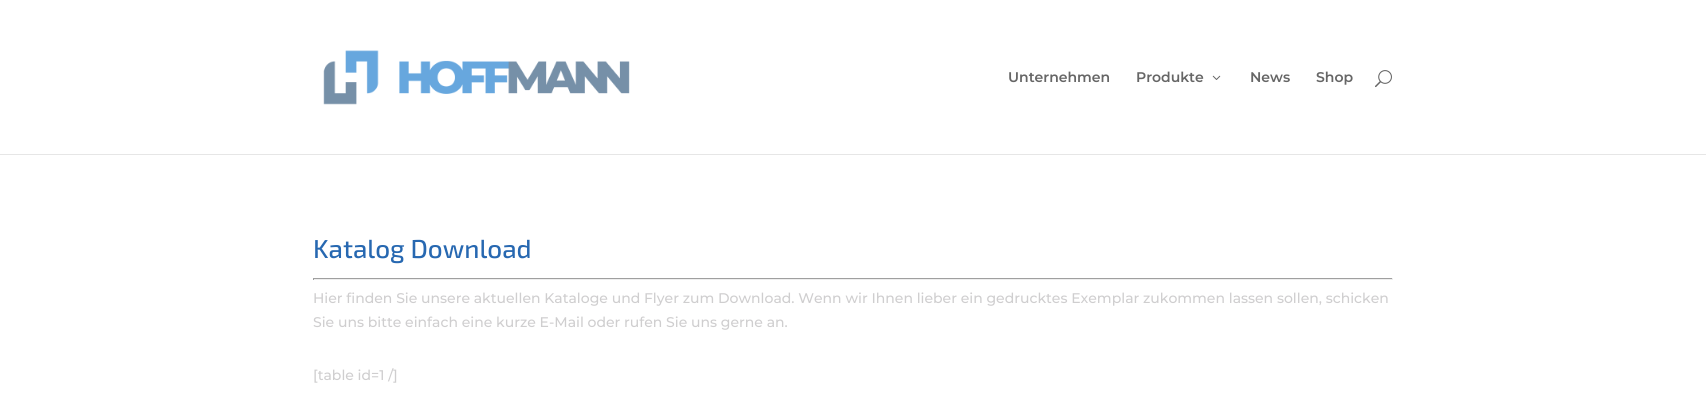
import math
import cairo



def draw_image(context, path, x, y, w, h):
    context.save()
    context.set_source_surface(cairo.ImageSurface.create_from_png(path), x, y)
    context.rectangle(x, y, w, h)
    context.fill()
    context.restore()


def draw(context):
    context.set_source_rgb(1, 1, 1)
    context.paint()
    context.set_source_rgb(230 / 255, 230 / 255, 230 / 255)
    context.rectangle(0, 154, 1706, 1)
    context.fill()
    draw_image(context, "images/1.png", 323, 50, 307, 55)
    draw_image(context, "images/2.png", 1212, 75, 9, 5)
    draw_image(context, "images/3.png", 1375, 70, 17, 18)
    context.set_source_rgb(159 / 255, 159 / 255, 159 / 255)
    context.rectangle(313, 278, 1080, 1)
    context.fill()
    context.set_source_rgb(238 / 255, 238 / 255, 238 / 255)
    context.rectangle(1392, 278, 1, 2)
    context.fill()
    context.rectangle(313, 279, 1080, 1)
    context.fill()
    context.set_source_rgb(159 / 255, 159 / 255, 159 / 255)
    context.rectangle(313, 278, 1, 2)
    context.fill()
    context.select_font_face("Montserrat SemiBold")
    context.set_font_size(14)
    context.set_source_rgb(102 / 255, 102 / 255, 102 / 255)
    context.move_to(1008, 82)
    context.show_text("Unternehmen")
    context.move_to(1136, 82)
    context.show_text("Produkte")
    context.move_to(1250, 82)
    context.show_text("News")
    context.move_to(1316, 82)
    context.show_text("Shop")
    context.select_font_face("Exo 2 Medium")
    context.set_font_size(26)
    context.set_source_rgb(39 / 255, 104 / 255, 177 / 255)
    context.move_to(313, 258)
    context.show_text("Katalog Download")
    context.select_font_face("Montserrat Medium")
    context.set_font_size(14)
    context.set_source_rgb(207 / 255, 206 / 255, 207 / 255)
    context.move_to(313, 303)
    context.show_text("Hier finden Sie unsere aktuellen Kataloge und Flyer zum Download. Wenn wir Ihnen lieber ein gedrucktes Exemplar zukommen lassen sollen, schicken")
    context.move_to(313, 327)
    context.show_text("Sie uns bitte einfach eine kurze E-Mail oder rufen Sie uns gerne an.")
    context.move_to(313, 380)
    context.show_text("[table id=1 /]")


surface = cairo.ImageSurface(cairo.Format.RGB24, 1706, 394)
context = cairo.Context(surface)
options = cairo.FontOptions()
options.set_hint_metrics(cairo.HintMetrics.OFF)
options.set_hint_style(cairo.HintStyle.NONE)
context.set_font_options(options)
context.set_miter_limit(4)
draw(context)
surface.write_to_png("out.png")
